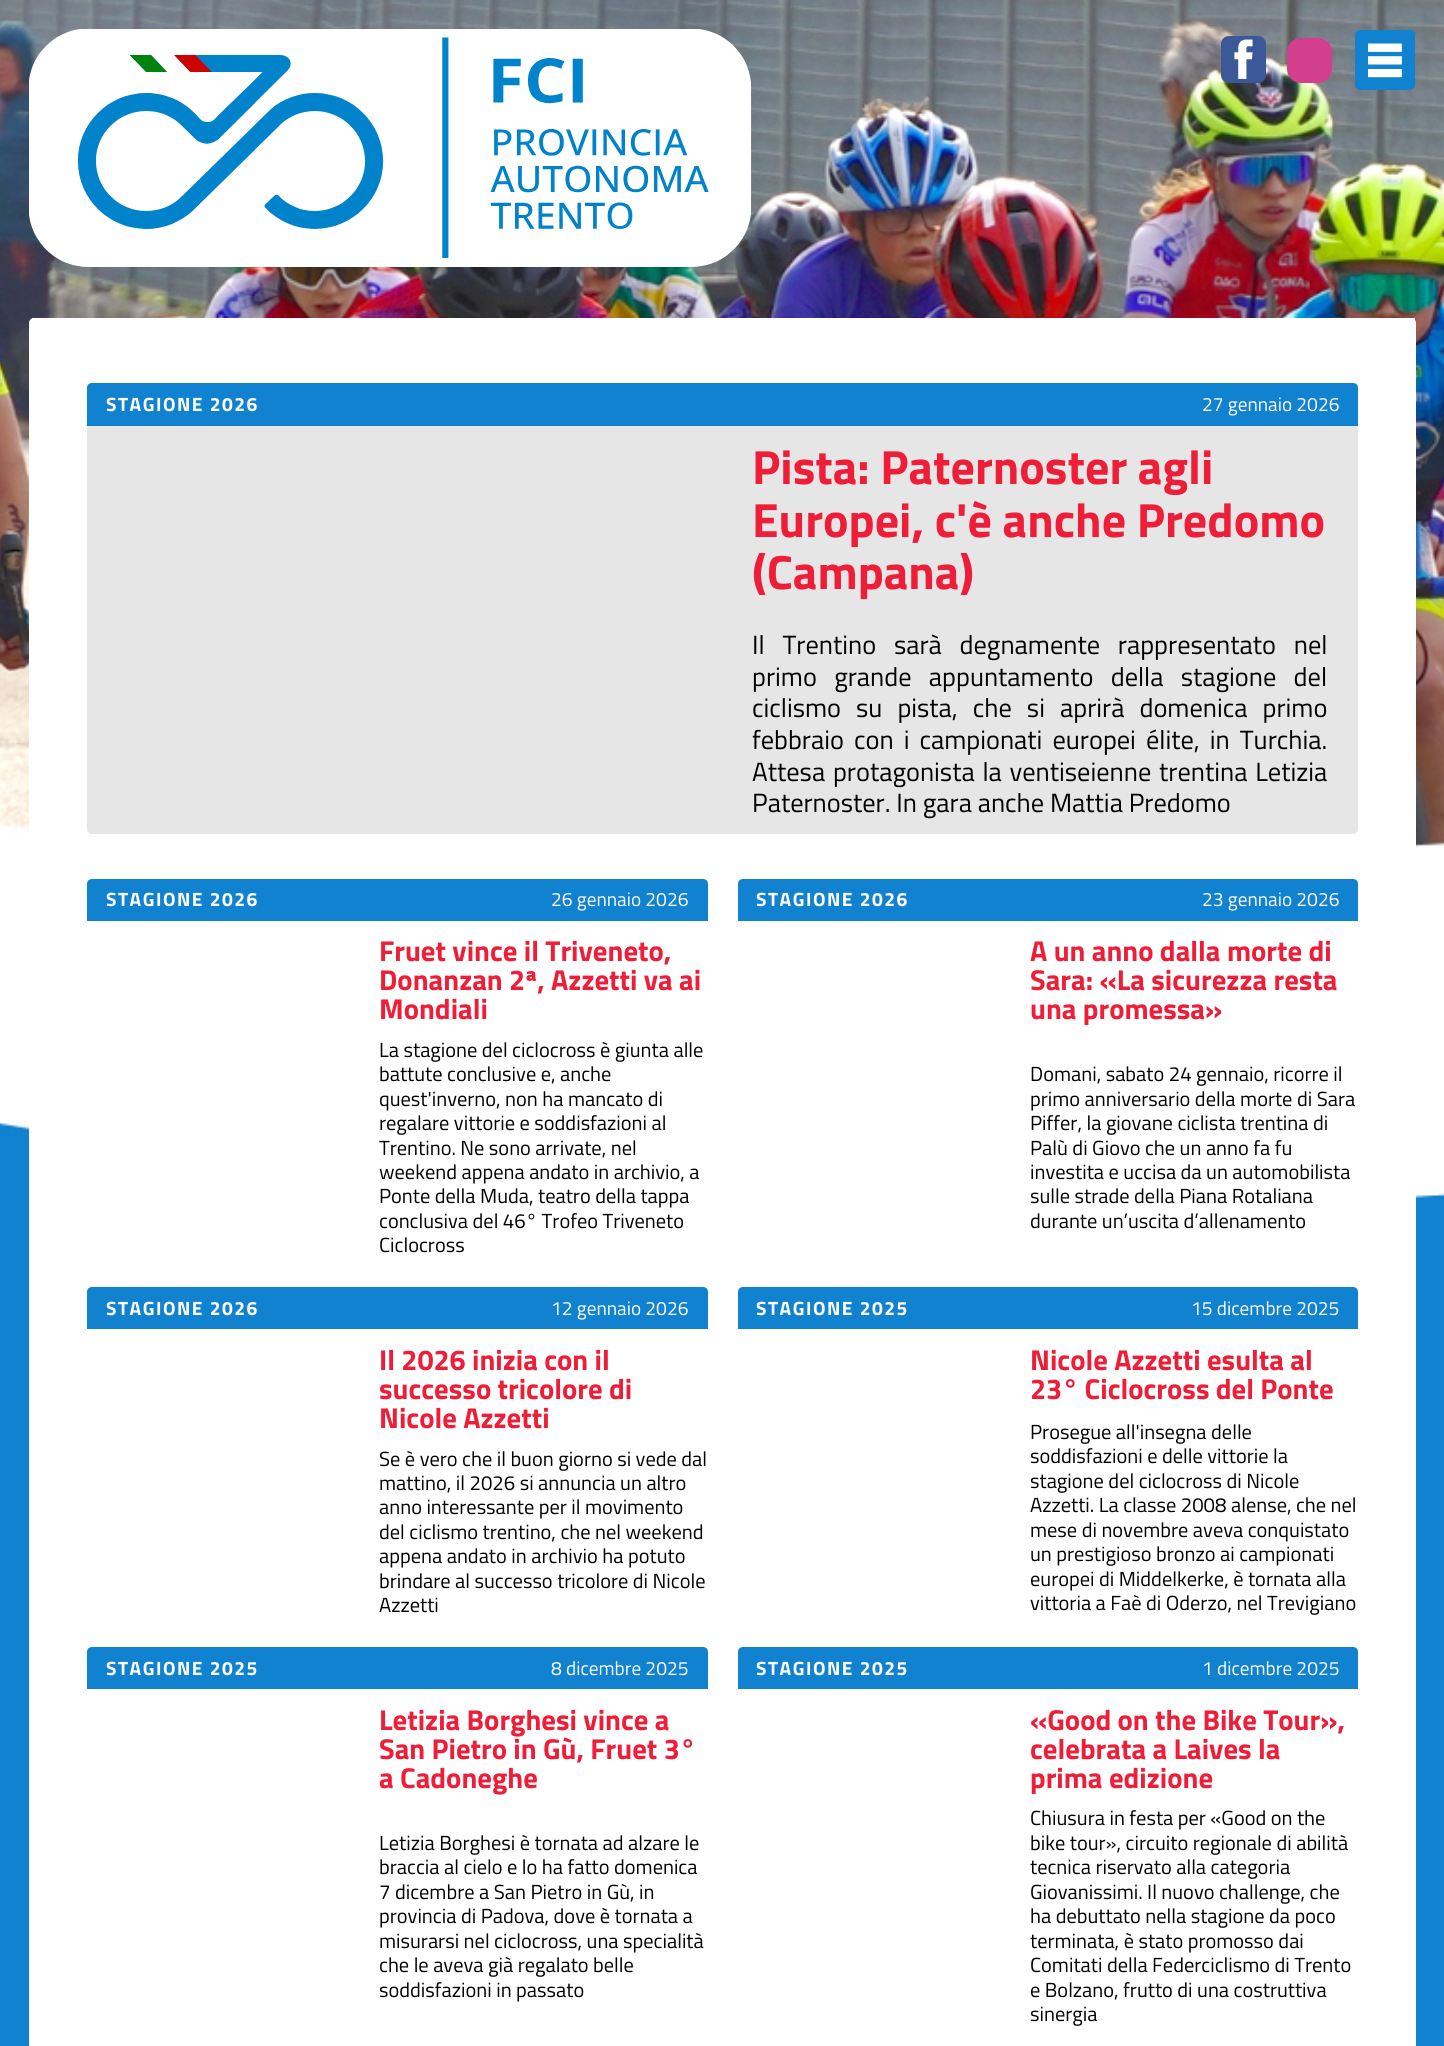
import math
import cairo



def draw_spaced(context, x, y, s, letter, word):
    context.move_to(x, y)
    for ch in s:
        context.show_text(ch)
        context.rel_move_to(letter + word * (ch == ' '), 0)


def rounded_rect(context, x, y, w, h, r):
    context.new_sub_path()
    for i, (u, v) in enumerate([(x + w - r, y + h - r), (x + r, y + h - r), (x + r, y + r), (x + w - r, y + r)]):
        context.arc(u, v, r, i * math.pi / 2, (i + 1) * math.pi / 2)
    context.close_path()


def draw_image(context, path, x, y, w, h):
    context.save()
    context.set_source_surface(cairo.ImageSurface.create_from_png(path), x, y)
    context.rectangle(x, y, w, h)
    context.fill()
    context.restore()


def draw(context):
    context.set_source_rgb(17 / 255, 130 / 255, 208 / 255)
    context.paint()
    draw_image(context, "images/1.png", 0, 0, 1444, 1210)
    draw_image(context, "images/2.png", 29, 29, 723, 238)
    context.set_source_rgb(59 / 255, 89 / 255, 152 / 255)
    rounded_rect(context, 1221, 36, 45, 47, 8)
    context.fill()
    context.set_source_rgb(212 / 255, 63 / 255, 141 / 255)
    rounded_rect(context, 1287, 38, 45, 45, 14)
    context.fill()
    draw_image(context, "images/3.png", 1234, 39, 19, 40)
    context.set_source_rgb(17 / 255, 130 / 255, 208 / 255)
    rounded_rect(context, 1355, 30, 60, 60, 5)
    context.fill()
    draw_image(context, "images/4.png", 1368, 43, 34, 35)
    context.set_source_rgb(1, 1, 1)
    rounded_rect(context, 29, 318, 1387, 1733, 5)
    context.fill()
    context.rectangle(32, 318, 1383, 2)
    context.fill()
    context.set_source_rgb(230 / 255, 230 / 255, 230 / 255)
    rounded_rect(context, 87, 383, 1271, 451, 5)
    context.fill()
    context.set_source_rgb(17 / 255, 130 / 255, 208 / 255)
    context.new_path()
    context.move_to(92, 383)
    context.line_to(935, 383)
    context.line_to(935, 426)
    context.line_to(87, 426)
    context.line_to(87, 388)
    context.curve_to(87, 385, 89, 383, 92, 383)
    context.close_path()
    context.fill()
    context.new_path()
    context.move_to(935, 383)
    context.line_to(1353, 383)
    context.curve_to(1356, 383, 1358, 385, 1358, 388)
    context.line_to(1358, 426)
    context.line_to(935, 426)
    context.close_path()
    context.fill()
    context.new_path()
    context.move_to(92, 879)
    context.line_to(357, 879)
    context.line_to(357, 921)
    context.line_to(87, 921)
    context.line_to(87, 884)
    context.curve_to(87, 881, 89, 879, 92, 879)
    context.close_path()
    context.fill()
    context.new_path()
    context.move_to(357, 879)
    context.line_to(703, 879)
    context.curve_to(706, 879, 708, 881, 708, 884)
    context.line_to(708, 921)
    context.line_to(357, 921)
    context.close_path()
    context.fill()
    context.new_path()
    context.move_to(743, 879)
    context.line_to(1008, 879)
    context.line_to(1008, 921)
    context.line_to(738, 921)
    context.line_to(738, 884)
    context.curve_to(738, 881, 740, 879, 743, 879)
    context.close_path()
    context.fill()
    context.new_path()
    context.move_to(1008, 879)
    context.line_to(1353, 879)
    context.curve_to(1356, 879, 1358, 881, 1358, 884)
    context.line_to(1358, 921)
    context.line_to(1008, 921)
    context.close_path()
    context.fill()
    context.new_path()
    context.move_to(92, 1287)
    context.line_to(357, 1287)
    context.line_to(357, 1329)
    context.line_to(87, 1329)
    context.line_to(87, 1292)
    context.curve_to(87, 1289, 89, 1287, 92, 1287)
    context.close_path()
    context.fill()
    context.new_path()
    context.move_to(357, 1287)
    context.line_to(703, 1287)
    context.curve_to(706, 1287, 708, 1289, 708, 1292)
    context.line_to(708, 1329)
    context.line_to(357, 1329)
    context.close_path()
    context.fill()
    context.new_path()
    context.move_to(743, 1287)
    context.line_to(1008, 1287)
    context.line_to(1008, 1329)
    context.line_to(738, 1329)
    context.line_to(738, 1292)
    context.curve_to(738, 1289, 740, 1287, 743, 1287)
    context.close_path()
    context.fill()
    context.new_path()
    context.move_to(1008, 1287)
    context.line_to(1353, 1287)
    context.curve_to(1356, 1287, 1358, 1289, 1358, 1292)
    context.line_to(1358, 1329)
    context.line_to(1008, 1329)
    context.close_path()
    context.fill()
    context.new_path()
    context.move_to(92, 1647)
    context.line_to(357, 1647)
    context.line_to(357, 1689)
    context.line_to(87, 1689)
    context.line_to(87, 1652)
    context.curve_to(87, 1649, 89, 1647, 92, 1647)
    context.close_path()
    context.fill()
    context.new_path()
    context.move_to(357, 1647)
    context.line_to(703, 1647)
    context.curve_to(706, 1647, 708, 1649, 708, 1652)
    context.line_to(708, 1689)
    context.line_to(357, 1689)
    context.close_path()
    context.fill()
    context.new_path()
    context.move_to(743, 1647)
    context.line_to(1008, 1647)
    context.line_to(1008, 1689)
    context.line_to(738, 1689)
    context.line_to(738, 1652)
    context.curve_to(738, 1649, 740, 1647, 743, 1647)
    context.close_path()
    context.fill()
    context.new_path()
    context.move_to(1008, 1647)
    context.line_to(1353, 1647)
    context.curve_to(1356, 1647, 1358, 1649, 1358, 1652)
    context.line_to(1358, 1689)
    context.line_to(1008, 1689)
    context.close_path()
    context.fill()
    context.select_font_face("Titillium Web", cairo.FontSlant.NORMAL, cairo.FontWeight.BOLD)
    context.set_font_size(19.25)
    context.set_source_rgb(1, 1, 1)
    draw_spaced(context, 106, 411, "STAGIONE 2026", 1.5, 0)
    context.select_font_face("Titillium Web")
    context.move_to(1202, 411)
    context.show_text("27 gennaio 2026")
    context.select_font_face("Titillium Web", cairo.FontSlant.NORMAL, cairo.FontWeight.BOLD)
    context.set_font_size(48)
    context.set_source_rgb(238 / 255, 30 / 255, 56 / 255)
    context.move_to(752, 484)
    context.show_text("Pista: Paternoster agli")
    context.move_to(752, 537)
    context.show_text("Europei, c'è anche Predomo")
    context.move_to(752, 589)
    context.show_text("(Campana)")
    context.select_font_face("Titillium Web")
    context.set_font_size(26.4)
    context.set_source_rgb(0, 0, 0)
    draw_spaced(context, 752, 654, "Il Trentino sarà degnamente rappresentato nel", 0, 12)
    draw_spaced(context, 752, 686, "primo grande appuntamento della stagione del", 0, 11.5)
    draw_spaced(context, 752, 717, "ciclismo su pista, che si aprirà domenica primo", 0, 9.25)
    draw_spaced(context, 752, 749, "febbraio con i campionati europei élite, in Turchia.", 0, 4.25)
    draw_spaced(context, 752, 781, "Attesa protagonista la ventiseienne trentina Letizia", 0, 2)
    context.move_to(752, 812)
    context.show_text("Paternoster. In gara anche Mattia Predomo")
    context.select_font_face("Titillium Web", cairo.FontSlant.NORMAL, cairo.FontWeight.BOLD)
    context.set_font_size(19.25)
    context.set_source_rgb(1, 1, 1)
    draw_spaced(context, 106, 906, "STAGIONE 2026", 1.5, 0)
    context.select_font_face("Titillium Web")
    context.move_to(551, 906)
    context.show_text("26 gennaio 2026")
    context.select_font_face("Titillium Web", cairo.FontSlant.NORMAL, cairo.FontWeight.BOLD)
    context.set_font_size(28.75)
    context.set_source_rgb(238 / 255, 30 / 255, 56 / 255)
    context.move_to(379, 961)
    context.show_text("Fruet vince il Triveneto,")
    context.move_to(379, 990)
    context.show_text("Donanzan 2ª, Azzetti va ai")
    context.move_to(379, 1019)
    context.show_text("Mondiali")
    context.select_font_face("Titillium Web")
    context.set_font_size(20.4)
    context.set_source_rgb(0, 0, 0)
    context.move_to(379, 1057)
    context.show_text("La stagione del ciclocross è giunta alle")
    context.move_to(379, 1081)
    context.show_text("battute conclusive e, anche")
    context.move_to(379, 1106)
    context.show_text("quest'inverno, non ha mancato di")
    context.move_to(379, 1130)
    context.show_text("regalare vittorie e soddisfazioni al")
    context.move_to(379, 1155)
    context.show_text("Trentino. Ne sono arrivate, nel")
    context.move_to(379, 1179)
    context.show_text("weekend appena andato in archivio, a")
    context.move_to(379, 1203)
    context.show_text("Ponte della Muda, teatro della tappa")
    context.move_to(379, 1228)
    context.show_text("conclusiva del 46° Trofeo Triveneto")
    context.move_to(379, 1252)
    context.show_text("Ciclocross")
    context.select_font_face("Titillium Web", cairo.FontSlant.NORMAL, cairo.FontWeight.BOLD)
    context.set_font_size(19.25)
    context.set_source_rgb(1, 1, 1)
    draw_spaced(context, 756, 906, "STAGIONE 2026", 1.5, 0)
    context.select_font_face("Titillium Web")
    context.move_to(1202, 906)
    context.show_text("23 gennaio 2026")
    context.select_font_face("Titillium Web", cairo.FontSlant.NORMAL, cairo.FontWeight.BOLD)
    context.set_font_size(28.75)
    context.set_source_rgb(238 / 255, 30 / 255, 56 / 255)
    context.move_to(1030, 961)
    context.show_text("A un anno dalla morte di")
    context.move_to(1030, 990)
    context.show_text("Sara: «La sicurezza resta")
    context.move_to(1030, 1019)
    context.show_text("una promessa»")
    context.select_font_face("Titillium Web")
    context.set_font_size(20.4)
    context.set_source_rgb(0, 0, 0)
    context.move_to(1030, 1081)
    context.show_text("Domani, sabato 24 gennaio, ricorre il")
    context.move_to(1030, 1106)
    context.show_text("primo anniversario della morte di Sara")
    context.move_to(1030, 1130)
    context.show_text("Piffer, la giovane ciclista trentina di")
    context.move_to(1030, 1155)
    context.show_text("Palù di Giovo che un anno fa fu")
    context.move_to(1030, 1179)
    context.show_text("investita e uccisa da un automobilista")
    context.move_to(1030, 1203)
    context.show_text("sulle strade della Piana Rotaliana")
    context.move_to(1030, 1228)
    context.show_text("durante un’uscita d’allenamento")
    context.select_font_face("Titillium Web", cairo.FontSlant.NORMAL, cairo.FontWeight.BOLD)
    context.set_font_size(19.25)
    context.set_source_rgb(1, 1, 1)
    draw_spaced(context, 106, 1315, "STAGIONE 2026", 1.5, 0)
    context.select_font_face("Titillium Web")
    context.move_to(551, 1315)
    context.show_text("12 gennaio 2026")
    context.select_font_face("Titillium Web", cairo.FontSlant.NORMAL, cairo.FontWeight.BOLD)
    context.set_font_size(28.75)
    context.set_source_rgb(238 / 255, 30 / 255, 56 / 255)
    context.move_to(379, 1370)
    context.show_text("Il 2026 inizia con il")
    context.move_to(379, 1399)
    context.show_text("successo tricolore di")
    context.move_to(379, 1428)
    context.show_text("Nicole Azzetti")
    context.select_font_face("Titillium Web")
    context.set_font_size(20.4)
    context.set_source_rgb(0, 0, 0)
    context.move_to(379, 1466)
    context.show_text("Se è vero che il buon giorno si vede dal")
    context.move_to(379, 1490)
    context.show_text("mattino, il 2026 si annuncia un altro")
    context.move_to(379, 1514)
    context.show_text("anno interessante per il movimento")
    context.move_to(379, 1539)
    context.show_text("del ciclismo trentino, che nel weekend")
    context.move_to(379, 1563)
    context.show_text("appena andato in archivio ha potuto")
    context.move_to(379, 1588)
    context.show_text("brindare al successo tricolore di Nicole")
    context.move_to(379, 1612)
    context.show_text("Azzetti")
    context.select_font_face("Titillium Web", cairo.FontSlant.NORMAL, cairo.FontWeight.BOLD)
    context.set_font_size(19.25)
    context.set_source_rgb(1, 1, 1)
    draw_spaced(context, 756, 1315, "STAGIONE 2025", 1.5, 0)
    context.select_font_face("Titillium Web")
    context.move_to(1191, 1315)
    context.show_text("15 dicembre 2025")
    context.select_font_face("Titillium Web", cairo.FontSlant.NORMAL, cairo.FontWeight.BOLD)
    context.set_font_size(28.75)
    context.set_source_rgb(238 / 255, 30 / 255, 56 / 255)
    context.move_to(1030, 1370)
    context.show_text("Nicole Azzetti esulta al")
    context.move_to(1030, 1399)
    context.show_text("23° Ciclocross del Ponte")
    context.select_font_face("Titillium Web")
    context.set_font_size(20.4)
    context.set_source_rgb(0, 0, 0)
    context.move_to(1030, 1439)
    context.show_text("Prosegue all'insegna delle")
    context.move_to(1030, 1463)
    context.show_text("soddisfazioni e delle vittorie la")
    context.move_to(1030, 1488)
    context.show_text("stagione del ciclocross di Nicole")
    context.move_to(1030, 1512)
    context.show_text("Azzetti. La classe 2008 alense, che nel")
    context.move_to(1030, 1537)
    context.show_text("mese di novembre aveva conquistato")
    context.move_to(1030, 1561)
    context.show_text("un prestigioso bronzo ai campionati")
    context.move_to(1030, 1586)
    context.show_text("europei di Middelkerke, è tornata alla")
    context.move_to(1030, 1610)
    context.show_text("vittoria a Faè di Oderzo, nel Trevigiano")
    context.select_font_face("Titillium Web", cairo.FontSlant.NORMAL, cairo.FontWeight.BOLD)
    context.set_font_size(19.25)
    context.set_source_rgb(1, 1, 1)
    draw_spaced(context, 106, 1675, "STAGIONE 2025", 1.5, 0)
    context.select_font_face("Titillium Web")
    context.move_to(551, 1675)
    context.show_text("8 dicembre 2025")
    context.select_font_face("Titillium Web", cairo.FontSlant.NORMAL, cairo.FontWeight.BOLD)
    context.set_font_size(28.75)
    context.set_source_rgb(238 / 255, 30 / 255, 56 / 255)
    context.move_to(379, 1730)
    context.show_text("Letizia Borghesi vince a")
    context.move_to(379, 1759)
    context.show_text("San Pietro in Gù, Fruet 3°")
    context.move_to(379, 1788)
    context.show_text("a Cadoneghe")
    context.select_font_face("Titillium Web")
    context.set_font_size(20.4)
    context.set_source_rgb(0, 0, 0)
    context.move_to(379, 1850)
    context.show_text("Letizia Borghesi è tornata ad alzare le")
    context.move_to(379, 1874)
    context.show_text("braccia al cielo e lo ha fatto domenica")
    context.move_to(379, 1899)
    context.show_text("7 dicembre a San Pietro in Gù, in")
    context.move_to(379, 1923)
    context.show_text("provincia di Padova, dove è tornata a")
    context.move_to(379, 1948)
    context.show_text("misurarsi nel ciclocross, una specialità")
    context.move_to(379, 1972)
    context.show_text("che le aveva già regalato belle")
    context.move_to(379, 1997)
    context.show_text("soddisfazioni in passato")
    context.select_font_face("Titillium Web", cairo.FontSlant.NORMAL, cairo.FontWeight.BOLD)
    context.set_font_size(19.25)
    context.set_source_rgb(1, 1, 1)
    draw_spaced(context, 756, 1675, "STAGIONE 2025", 1.5, 0)
    context.select_font_face("Titillium Web")
    context.move_to(1202, 1675)
    context.show_text("1 dicembre 2025")
    context.select_font_face("Titillium Web", cairo.FontSlant.NORMAL, cairo.FontWeight.BOLD)
    context.set_font_size(28.75)
    context.set_source_rgb(238 / 255, 30 / 255, 56 / 255)
    context.move_to(1030, 1730)
    context.show_text("«Good on the Bike Tour»,")
    context.move_to(1030, 1759)
    context.show_text("celebrata a Laives la")
    context.move_to(1030, 1788)
    context.show_text("prima edizione")
    context.select_font_face("Titillium Web")
    context.set_font_size(20.4)
    context.set_source_rgb(0, 0, 0)
    context.move_to(1030, 1825)
    context.show_text("Chiusura in festa per «Good on the")
    context.move_to(1030, 1850)
    context.show_text("bike tour», circuito regionale di abilità")
    context.move_to(1030, 1874)
    context.show_text("tecnica riservato alla categoria")
    context.move_to(1030, 1899)
    context.show_text("Giovanissimi. Il nuovo challenge, che")
    context.move_to(1030, 1923)
    context.show_text("ha debuttato nella stagione da poco")
    context.move_to(1030, 1948)
    context.show_text("terminata, è stato promosso dai")
    context.move_to(1030, 1972)
    context.show_text("Comitati della Federciclismo di Trento")
    context.move_to(1030, 1997)
    context.show_text("e Bolzano, frutto di una costruttiva")
    context.move_to(1030, 2021)
    context.show_text("sinergia")


surface = cairo.ImageSurface(cairo.Format.RGB24, 1444, 2046)
context = cairo.Context(surface)
options = cairo.FontOptions()
options.set_hint_metrics(cairo.HintMetrics.OFF)
options.set_hint_style(cairo.HintStyle.NONE)
context.set_font_options(options)
context.set_miter_limit(4)
draw(context)
surface.write_to_png("out.png")
